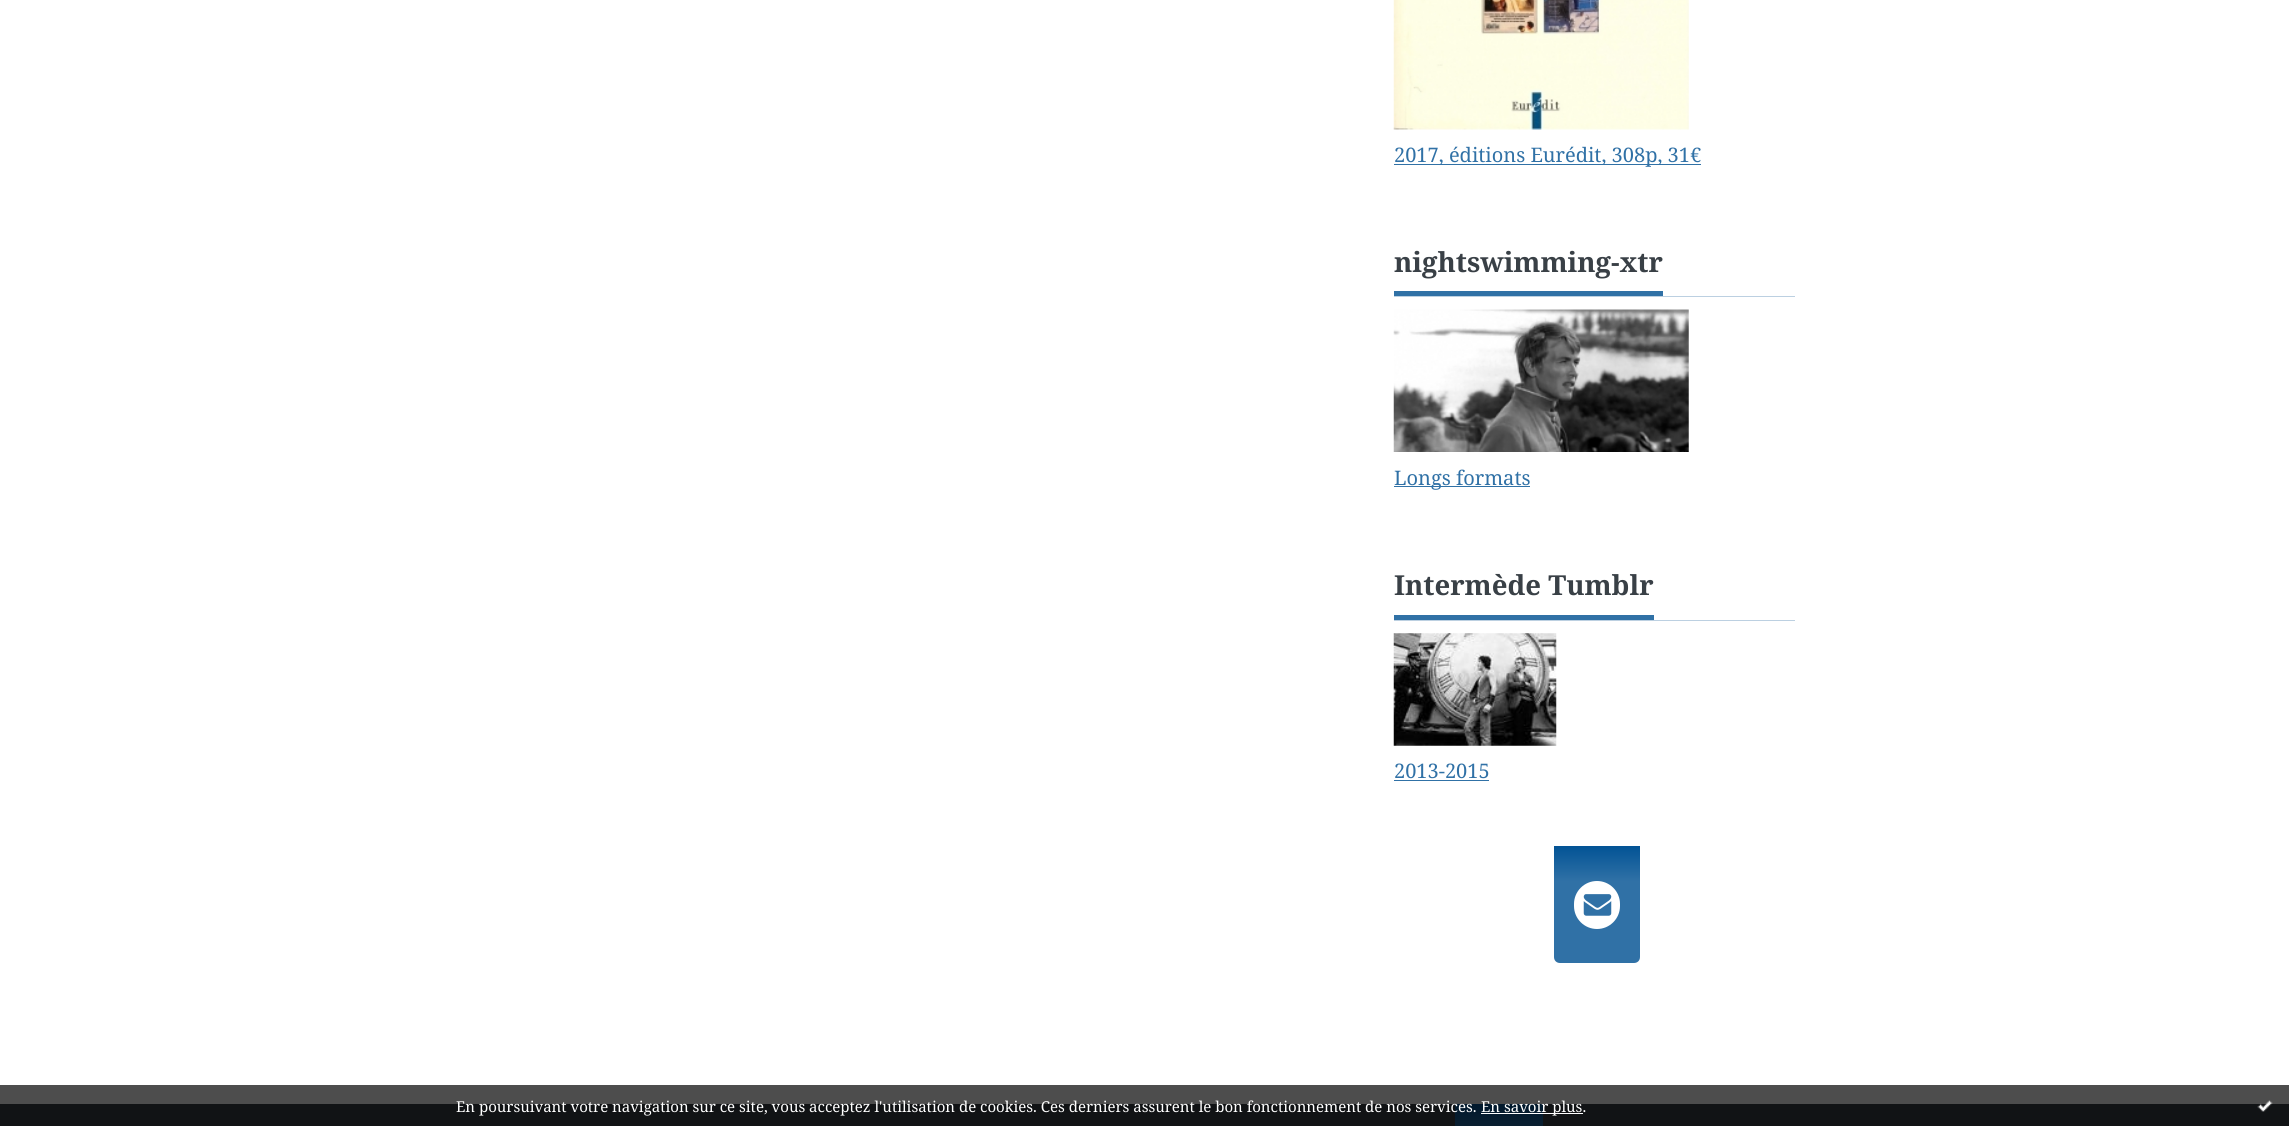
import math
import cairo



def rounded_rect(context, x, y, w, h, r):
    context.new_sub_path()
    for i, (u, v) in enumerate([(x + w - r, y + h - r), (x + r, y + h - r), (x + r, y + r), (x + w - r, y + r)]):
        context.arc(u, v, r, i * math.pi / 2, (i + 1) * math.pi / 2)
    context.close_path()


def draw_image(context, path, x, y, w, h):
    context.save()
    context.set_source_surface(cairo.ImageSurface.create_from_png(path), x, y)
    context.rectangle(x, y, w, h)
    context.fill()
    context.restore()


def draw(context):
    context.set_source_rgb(1, 1, 1)
    context.paint()
    context.set_source_rgb(77 / 255, 77 / 255, 77 / 255)
    context.rectangle(0, 1085, 2289, 19)
    context.fill()
    draw_image(context, "images/1.png", 1393, 0, 296, 130)
    context.set_source_rgb(48 / 255, 113 / 255, 166 / 255)
    context.rectangle(1394, 164, 307, 1)
    context.fill()
    context.set_source_rgb(188 / 255, 208 / 255, 225 / 255)
    context.rectangle(1394, 296, 401, 1)
    context.fill()
    context.set_source_rgb(48 / 255, 113 / 255, 166 / 255)
    context.rectangle(1394, 291, 269, 5)
    context.fill()
    draw_image(context, "images/2.png", 1393, 309, 296, 143)
    context.rectangle(1394, 486, 136, 1)
    context.fill()
    context.set_source_rgb(188 / 255, 208 / 255, 225 / 255)
    context.rectangle(1394, 620, 401, 1)
    context.fill()
    context.set_source_rgb(48 / 255, 113 / 255, 166 / 255)
    context.rectangle(1394, 615, 260, 5)
    context.fill()
    draw_image(context, "images/3.png", 1393, 633, 164, 113)
    context.rectangle(1394, 780, 95, 1)
    context.fill()
    gradient = cairo.LinearGradient(1597, 846, 1597, 963)
    gradient.add_color_stop_rgba(0, 2 / 255, 83 / 255, 149 / 255, 1)
    gradient.add_color_stop_rgba(0.3, 48 / 255, 113 / 255, 166 / 255, 1)
    context.set_source(gradient)
    context.new_path()
    context.move_to(1554, 846)
    context.line_to(1640, 846)
    context.line_to(1640, 957)
    context.curve_to(1640, 960.5, 1637.5, 963, 1634, 963)
    context.line_to(1560, 963)
    context.curve_to(1556.5, 963, 1554, 960.5, 1554, 957)
    context.close_path()
    context.fill()
    context.set_source_rgb(1, 1, 1)
    rounded_rect(context, 1574, 881, 46, 48, 23)
    context.fill()
    draw_image(context, "images/4.png", 1583, 894, 29, 22)
    context.set_source_rgb(17 / 255, 19 / 255, 21 / 255)
    context.rectangle(0, 1104, 2289, 22)
    context.fill()
    gradient = cairo.LinearGradient(1499, 1104, 1499, 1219)
    gradient.add_color_stop_rgba(0, 1 / 255, 25 / 255, 45 / 255, 1)
    gradient.add_color_stop_rgba(0.3, 14 / 255, 34 / 255, 50 / 255, 1)
    context.set_source(gradient)
    context.rectangle(1455, 1104, 88, 22)
    context.fill()
    context.set_source_rgb(1, 1, 1)
    context.rectangle(1481, 1113, 102, 1)
    context.fill()
    draw_image(context, "images/5.png", 2257, 1100, 16, 12)
    context.select_font_face("Noto Serif")
    context.set_font_size(20)
    context.set_source_rgb(48 / 255, 113 / 255, 166 / 255)
    context.move_to(1394, 162)
    context.show_text("2017, éditions Eurédit, 308p, 31€")
    context.select_font_face("Noto Serif", cairo.FontSlant.NORMAL, cairo.FontWeight.BOLD)
    context.set_font_size(27.5)
    context.set_source_rgb(57 / 255, 64 / 255, 70 / 255)
    context.move_to(1394, 272)
    context.show_text("nightswimming-xtr")
    context.select_font_face("Noto Serif")
    context.set_font_size(20)
    context.set_source_rgb(48 / 255, 113 / 255, 166 / 255)
    context.move_to(1394, 485)
    context.show_text("Longs formats")
    context.select_font_face("Noto Serif", cairo.FontSlant.NORMAL, cairo.FontWeight.BOLD)
    context.set_font_size(27.5)
    context.set_source_rgb(57 / 255, 64 / 255, 70 / 255)
    context.move_to(1394, 595)
    context.show_text("Intermède Tumblr")
    context.select_font_face("Noto Serif")
    context.set_font_size(20)
    context.set_source_rgb(48 / 255, 113 / 255, 166 / 255)
    context.move_to(1394, 778)
    context.show_text("2013-2015")
    context.set_font_size(15)
    context.set_source_rgb(1, 1, 1)
    context.move_to(456, 1112)
    context.show_text("En poursuivant votre navigation sur ce site, vous acceptez l'utilisation de cookies. Ces derniers assurent le bon fonctionnement de nos services.")
    context.move_to(1481, 1112)
    context.show_text("En savoir plus.")


surface = cairo.ImageSurface(cairo.Format.RGB24, 2289, 1126)
context = cairo.Context(surface)
options = cairo.FontOptions()
options.set_hint_metrics(cairo.HintMetrics.OFF)
options.set_hint_style(cairo.HintStyle.NONE)
context.set_font_options(options)
context.set_miter_limit(4)
draw(context)
surface.write_to_png("out.png")
